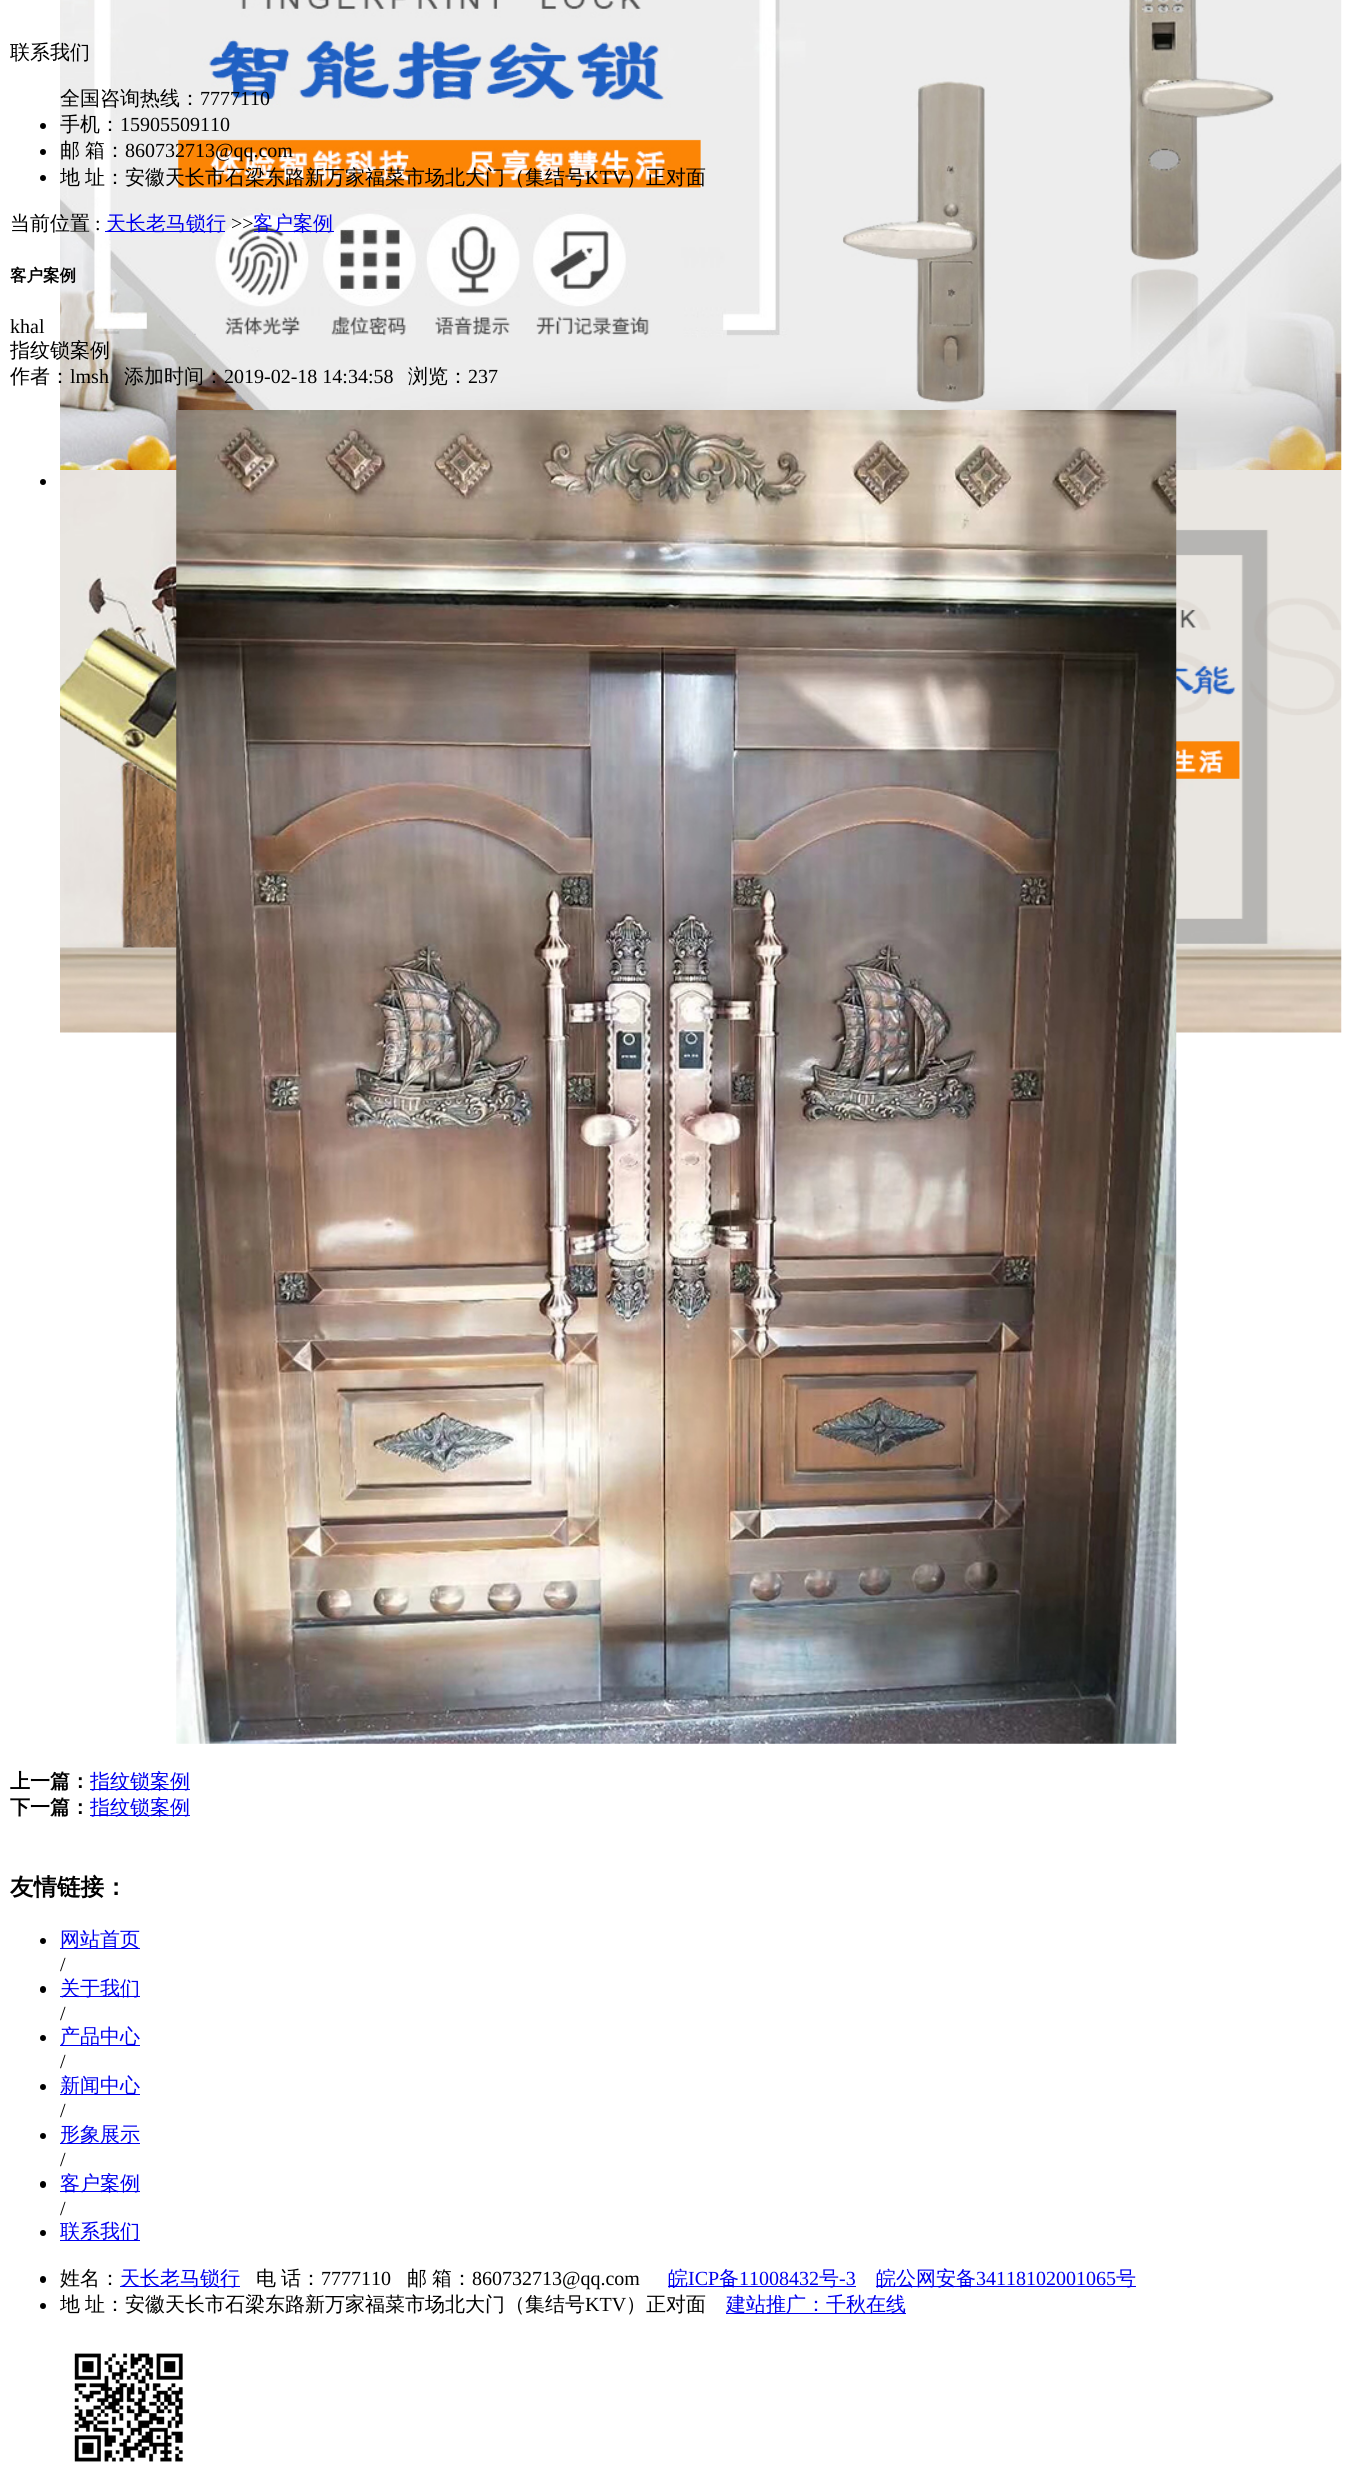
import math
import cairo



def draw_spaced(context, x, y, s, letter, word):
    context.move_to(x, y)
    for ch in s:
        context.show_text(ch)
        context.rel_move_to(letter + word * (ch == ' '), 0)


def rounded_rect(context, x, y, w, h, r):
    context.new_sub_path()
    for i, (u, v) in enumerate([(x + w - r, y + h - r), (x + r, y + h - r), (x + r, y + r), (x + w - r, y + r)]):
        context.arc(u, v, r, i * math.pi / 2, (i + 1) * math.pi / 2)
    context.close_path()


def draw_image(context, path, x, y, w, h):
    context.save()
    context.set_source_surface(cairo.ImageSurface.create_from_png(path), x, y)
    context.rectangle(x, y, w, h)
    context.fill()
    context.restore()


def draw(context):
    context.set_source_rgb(1, 1, 1)
    context.paint()
    draw_image(context, "images/1.png", 60, 0, 1282, 470)
    context.set_source_rgb(0, 0, 0)
    context.arc(43, 482, 3, 0, 2 * math.pi)
    context.fill()
    draw_image(context, "images/2.png", 60, 470, 1282, 563)
    context.arc(43, 126, 3, 0, 2 * math.pi)
    context.fill()
    context.arc(43, 152, 3, 0, 2 * math.pi)
    context.fill()
    context.arc(43, 178, 3, 0, 2 * math.pi)
    context.fill()
    context.set_source_rgb(0, 0, 238 / 255)
    context.rectangle(105, 231, 120, 1)
    context.fill()
    context.rectangle(254, 231, 80, 1)
    context.fill()
    draw_image(context, "images/3.png", 176, 410, 1001, 1334)
    context.rectangle(90, 1789, 100, 1)
    context.fill()
    context.rectangle(90, 1815, 100, 1)
    context.fill()
    context.set_source_rgb(0, 0, 0)
    context.arc(43, 1941, 3, 0, 2 * math.pi)
    context.fill()
    context.set_source_rgb(0, 0, 238 / 255)
    context.rectangle(60, 1948, 80, 1)
    context.fill()
    context.set_source_rgb(0, 0, 0)
    rounded_rect(context, 40, 1986, 6, 7, 3)
    context.fill()
    context.set_source_rgb(0, 0, 238 / 255)
    context.rectangle(60, 1996, 80, 1)
    context.fill()
    context.set_source_rgb(0, 0, 0)
    context.arc(43, 2038, 3, 0, 2 * math.pi)
    context.fill()
    context.set_source_rgb(0, 0, 238 / 255)
    context.rectangle(60, 2045, 80, 1)
    context.fill()
    context.set_source_rgb(0, 0, 0)
    context.arc(43, 2087, 3, 0, 2 * math.pi)
    context.fill()
    context.set_source_rgb(0, 0, 238 / 255)
    context.rectangle(60, 2094, 80, 1)
    context.fill()
    context.set_source_rgb(0, 0, 0)
    context.arc(43, 2136, 3, 0, 2 * math.pi)
    context.fill()
    context.set_source_rgb(0, 0, 238 / 255)
    context.rectangle(60, 2143, 80, 1)
    context.fill()
    context.set_source_rgb(0, 0, 0)
    rounded_rect(context, 40, 2181, 6, 7, 3)
    context.fill()
    context.set_source_rgb(0, 0, 238 / 255)
    context.rectangle(60, 2191, 80, 1)
    context.fill()
    context.set_source_rgb(0, 0, 0)
    context.arc(43, 2233, 3, 0, 2 * math.pi)
    context.fill()
    context.set_source_rgb(0, 0, 238 / 255)
    context.rectangle(60, 2240, 80, 1)
    context.fill()
    context.set_source_rgb(0, 0, 0)
    rounded_rect(context, 40, 2276, 6, 7, 3)
    context.fill()
    context.set_source_rgb(0, 0, 238 / 255)
    context.rectangle(120, 2286, 120, 1)
    context.fill()
    context.rectangle(668, 2286, 188, 1)
    context.fill()
    context.rectangle(876, 2286, 260, 1)
    context.fill()
    context.set_source_rgb(0, 0, 0)
    context.arc(43, 2306, 3, 0, 2 * math.pi)
    context.fill()
    context.set_source_rgb(0, 0, 238 / 255)
    context.rectangle(726, 2313, 180, 1)
    context.fill()
    draw_image(context, "images/4.png", 74, 2353, 109, 109)
    context.select_font_face("WenQuanYi Zen Hei Medium")
    context.set_font_size(20)
    context.set_source_rgb(0, 0, 0)
    context.move_to(10, 59)
    context.show_text("联系我们")
    context.move_to(60, 105)
    context.show_text("全国咨询热线：")
    context.select_font_face("Liberation Serif")
    context.move_to(200, 105)
    context.show_text("7777110")
    context.select_font_face("WenQuanYi Zen Hei Medium")
    context.move_to(60, 131)
    context.show_text("手机：")
    context.select_font_face("Liberation Serif")
    context.move_to(120, 131)
    context.show_text("15905509110")
    context.select_font_face("WenQuanYi Zen Hei Medium")
    draw_spaced(context, 60, 157, "邮 箱：", 0, -1)
    context.select_font_face("Liberation Serif")
    context.move_to(125, 157)
    context.show_text("860732713@qq.com")
    context.select_font_face("WenQuanYi Zen Hei Medium")
    draw_spaced(context, 60, 184, "地 址：安徽天长市石梁东路新万家福菜市场北大门（集结号", 0, -1)
    context.select_font_face("Liberation Serif")
    context.move_to(585, 184)
    context.show_text("KTV")
    context.select_font_face("WenQuanYi Zen Hei Medium")
    context.move_to(626, 184)
    context.show_text("）正对面")
    context.move_to(10, 230)
    context.show_text("当前位置")
    context.select_font_face("Liberation Serif")
    context.move_to(95, 230)
    context.show_text(":")
    context.select_font_face("WenQuanYi Zen Hei Medium")
    context.set_source_rgb(0, 0, 238 / 255)
    context.move_to(106, 230)
    context.show_text("天长老马锁行")
    context.select_font_face("Liberation Serif")
    context.set_source_rgb(0, 0, 0)
    context.move_to(231, 230)
    context.show_text(">>")
    context.select_font_face("WenQuanYi Zen Hei Medium")
    context.set_source_rgb(0, 0, 238 / 255)
    context.move_to(253, 230)
    context.show_text("客户案例")
    context.select_font_face("WenQuanYi Zen Hei", cairo.FontSlant.NORMAL, cairo.FontWeight.BOLD)
    context.set_font_size(16.5)
    context.set_source_rgb(0, 0, 0)
    context.move_to(10, 281)
    context.show_text("客户案例")
    context.select_font_face("Liberation Serif")
    context.set_font_size(20)
    context.move_to(10, 333)
    context.show_text("khal")
    context.select_font_face("WenQuanYi Zen Hei Medium")
    context.move_to(10, 357)
    context.show_text("指纹锁案例")
    context.move_to(10, 383)
    context.show_text("作者：")
    context.select_font_face("Liberation Serif")
    context.move_to(70, 383)
    context.show_text("lmsh")
    context.select_font_face("WenQuanYi Zen Hei Medium")
    context.move_to(124, 383)
    context.show_text("添加时间：")
    context.select_font_face("Liberation Serif")
    context.move_to(224, 383)
    context.show_text("2019-02-18 14:34:58")
    context.select_font_face("WenQuanYi Zen Hei Medium")
    context.move_to(408, 383)
    context.show_text("浏览：")
    context.select_font_face("Liberation Serif")
    context.move_to(468, 383)
    context.show_text("237")
    context.select_font_face("WenQuanYi Zen Hei", cairo.FontSlant.NORMAL, cairo.FontWeight.BOLD)
    context.move_to(10, 1788)
    context.show_text("上一篇：")
    context.select_font_face("WenQuanYi Zen Hei Medium")
    context.set_source_rgb(0, 0, 238 / 255)
    context.move_to(90, 1788)
    context.show_text("指纹锁案例")
    context.select_font_face("WenQuanYi Zen Hei", cairo.FontSlant.NORMAL, cairo.FontWeight.BOLD)
    context.set_source_rgb(0, 0, 0)
    context.move_to(10, 1814)
    context.show_text("下一篇：")
    context.select_font_face("WenQuanYi Zen Hei Medium")
    context.set_source_rgb(0, 0, 238 / 255)
    context.move_to(90, 1814)
    context.show_text("指纹锁案例")
    context.select_font_face("WenQuanYi Zen Hei", cairo.FontSlant.NORMAL, cairo.FontWeight.BOLD)
    context.set_font_size(23.5)
    context.set_source_rgb(0, 0, 0)
    context.move_to(10, 1895)
    context.show_text("友情链接：")
    context.select_font_face("WenQuanYi Zen Hei Medium")
    context.set_font_size(20)
    context.set_source_rgb(0, 0, 238 / 255)
    context.move_to(60, 1946)
    context.show_text("网站首页")
    context.select_font_face("Liberation Serif")
    context.set_source_rgb(0, 0, 0)
    context.move_to(60, 1971)
    context.show_text("/")
    context.select_font_face("WenQuanYi Zen Hei Medium")
    context.set_source_rgb(0, 0, 238 / 255)
    context.move_to(60, 1995)
    context.show_text("关于我们")
    context.select_font_face("Liberation Serif")
    context.set_source_rgb(0, 0, 0)
    context.move_to(60, 2020)
    context.show_text("/")
    context.select_font_face("WenQuanYi Zen Hei Medium")
    context.set_source_rgb(0, 0, 238 / 255)
    context.move_to(60, 2043)
    context.show_text("产品中心")
    context.select_font_face("Liberation Serif")
    context.set_source_rgb(0, 0, 0)
    context.move_to(60, 2068)
    context.show_text("/")
    context.select_font_face("WenQuanYi Zen Hei Medium")
    context.set_source_rgb(0, 0, 238 / 255)
    context.move_to(60, 2092)
    context.show_text("新闻中心")
    context.select_font_face("Liberation Serif")
    context.set_source_rgb(0, 0, 0)
    context.move_to(60, 2117)
    context.show_text("/")
    context.select_font_face("WenQuanYi Zen Hei Medium")
    context.set_source_rgb(0, 0, 238 / 255)
    context.move_to(60, 2141)
    context.show_text("形象展示")
    context.select_font_face("Liberation Serif")
    context.set_source_rgb(0, 0, 0)
    context.move_to(60, 2166)
    context.show_text("/")
    context.select_font_face("WenQuanYi Zen Hei Medium")
    context.set_source_rgb(0, 0, 238 / 255)
    context.move_to(60, 2190)
    context.show_text("客户案例")
    context.select_font_face("Liberation Serif")
    context.set_source_rgb(0, 0, 0)
    context.move_to(60, 2215)
    context.show_text("/")
    context.select_font_face("WenQuanYi Zen Hei Medium")
    context.set_source_rgb(0, 0, 238 / 255)
    context.move_to(60, 2238)
    context.show_text("联系我们")
    context.set_source_rgb(0, 0, 0)
    context.move_to(60, 2285)
    context.show_text("姓名：")
    context.set_source_rgb(0, 0, 238 / 255)
    context.move_to(120, 2285)
    context.show_text("天长老马锁行")
    context.set_source_rgb(0, 0, 0)
    draw_spaced(context, 256, 2285, "电 话：", 0, -1)
    context.select_font_face("Liberation Serif")
    context.move_to(321, 2285)
    context.show_text("7777110")
    context.select_font_face("WenQuanYi Zen Hei Medium")
    draw_spaced(context, 407, 2285, "邮 箱：", 0, -1)
    context.select_font_face("Liberation Serif")
    context.move_to(472, 2285)
    context.show_text("860732713@qq.com")
    context.select_font_face("WenQuanYi Zen Hei Medium")
    context.set_source_rgb(0, 0, 238 / 255)
    context.move_to(668, 2285)
    context.show_text("皖")
    context.select_font_face("Liberation Serif")
    context.move_to(688, 2285)
    context.show_text("ICP")
    context.select_font_face("WenQuanYi Zen Hei Medium")
    context.move_to(719, 2285)
    context.show_text("备")
    context.select_font_face("Liberation Serif")
    context.move_to(739, 2285)
    context.show_text("11008432")
    context.select_font_face("WenQuanYi Zen Hei Medium")
    context.move_to(819, 2285)
    context.show_text("号")
    context.select_font_face("Liberation Serif")
    context.move_to(839, 2285)
    context.show_text("-3")
    context.select_font_face("WenQuanYi Zen Hei Medium")
    context.move_to(876, 2285)
    context.show_text("皖公网安备")
    context.select_font_face("Liberation Serif")
    context.move_to(976, 2285)
    context.show_text("34118102001065")
    context.select_font_face("WenQuanYi Zen Hei Medium")
    context.move_to(1116, 2285)
    context.show_text("号")
    context.set_source_rgb(0, 0, 0)
    draw_spaced(context, 60, 2311, "地 址：安徽天长市石梁东路新万家福菜市场北大门（集结号", 0, -1)
    context.select_font_face("Liberation Serif")
    context.move_to(585, 2311)
    context.show_text("KTV")
    context.select_font_face("WenQuanYi Zen Hei Medium")
    context.move_to(626, 2311)
    context.show_text("）正对面")
    context.set_source_rgb(0, 0, 238 / 255)
    context.move_to(726, 2311)
    context.show_text("建站推广：千秋在线")


surface = cairo.ImageSurface(cairo.Format.RGB24, 1351, 2484)
context = cairo.Context(surface)
options = cairo.FontOptions()
options.set_hint_metrics(cairo.HintMetrics.OFF)
options.set_hint_style(cairo.HintStyle.NONE)
context.set_font_options(options)
context.set_miter_limit(4)
draw(context)
surface.write_to_png("out.png")
